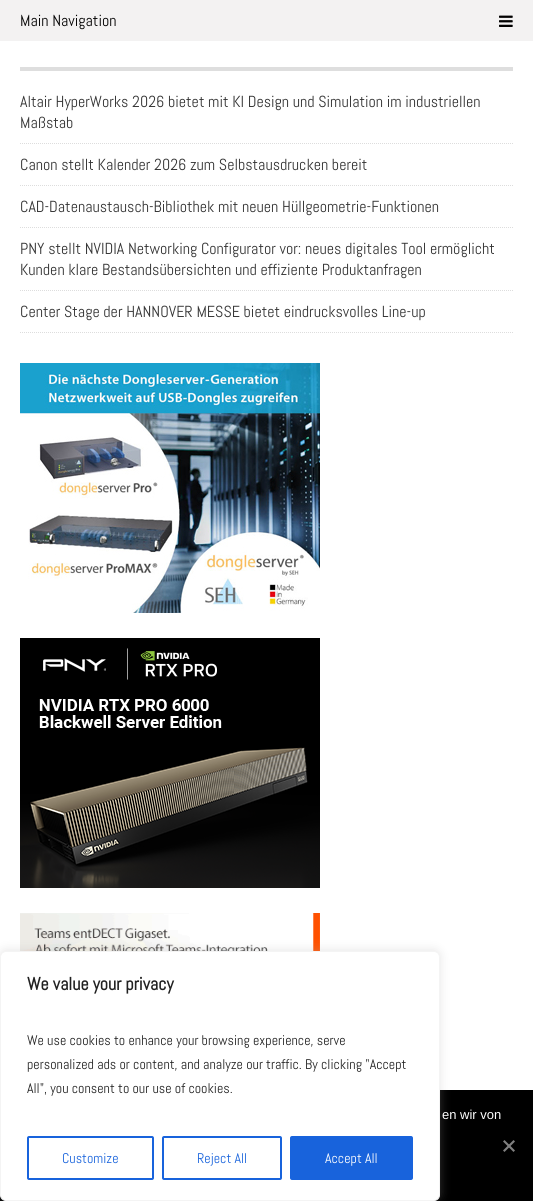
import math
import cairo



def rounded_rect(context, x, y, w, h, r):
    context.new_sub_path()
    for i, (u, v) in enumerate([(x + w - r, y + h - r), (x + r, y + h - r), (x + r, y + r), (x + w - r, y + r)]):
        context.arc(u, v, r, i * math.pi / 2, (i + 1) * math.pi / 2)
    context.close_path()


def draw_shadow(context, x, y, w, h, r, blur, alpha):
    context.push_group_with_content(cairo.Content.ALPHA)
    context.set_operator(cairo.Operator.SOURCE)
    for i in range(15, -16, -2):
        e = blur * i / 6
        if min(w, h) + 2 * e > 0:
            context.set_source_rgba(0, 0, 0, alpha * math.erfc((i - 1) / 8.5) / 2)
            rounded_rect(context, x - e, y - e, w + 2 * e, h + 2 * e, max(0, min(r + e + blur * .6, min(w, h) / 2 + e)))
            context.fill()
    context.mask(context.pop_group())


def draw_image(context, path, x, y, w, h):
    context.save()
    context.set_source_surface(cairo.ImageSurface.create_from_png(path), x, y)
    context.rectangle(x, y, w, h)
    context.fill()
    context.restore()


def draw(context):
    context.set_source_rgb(1, 1, 1)
    context.paint()
    context.set_source_rgb(243 / 255, 242 / 255, 242 / 255)
    context.rectangle(0, 0, 533, 41)
    context.fill()
    draw_image(context, "images/1.png", 499, 15, 14, 12)
    context.set_source_rgb(222 / 255, 222 / 255, 222 / 255)
    context.rectangle(20, 67, 493, 4)
    context.fill()
    context.new_path()
    context.move_to(20, 143.5)
    context.line_to(513, 143.5)
    context.set_source_rgb(221 / 255, 221 / 255, 221 / 255)
    context.set_line_width(1)
    context.set_dash([1, 1])
    context.stroke()
    context.new_path()
    context.move_to(20, 185.5)
    context.line_to(513, 185.5)
    context.stroke()
    context.new_path()
    context.move_to(20, 227.5)
    context.line_to(513, 227.5)
    context.stroke()
    context.new_path()
    context.move_to(20, 290.5)
    context.line_to(513, 290.5)
    context.stroke()
    context.new_path()
    context.move_to(20, 332.5)
    context.line_to(513, 332.5)
    context.stroke()
    draw_image(context, "images/2.png", 20, 363, 300, 250)
    draw_image(context, "images/3.png", 20, 638, 300, 250)
    draw_image(context, "images/4.png", 20, 913, 300, 38)
    context.set_source_rgb(0, 0, 0)
    context.rectangle(0, 1090, 533, 111)
    context.fill()
    context.set_source_rgb(172 / 255, 171 / 255, 171 / 255)
    draw_shadow(context, 0, 950, 440, 250, 6, 5, 0.3)
    context.set_source_rgb(1, 1, 1)
    rounded_rect(context, 0.5, 951.5, 439, 249, 5.5)
    context.fill_preserve()
    context.set_source_rgb(244 / 255, 244 / 255, 244 / 255)
    context.set_dash([])
    context.stroke()
    rounded_rect(context, 28, 1137, 125, 42, 1)
    context.set_source_rgb(24 / 255, 99 / 255, 220 / 255)
    context.set_line_width(2)
    context.stroke()
    rounded_rect(context, 163, 1137, 118, 42, 1)
    context.stroke()
    rounded_rect(context, 291, 1137, 121, 42, 1)
    context.fill_preserve()
    context.stroke()
    context.set_source_rgb(128 / 255, 128 / 255, 128 / 255)
    context.new_path()
    context.move_to(513.5, 1140)
    context.line_to(515, 1141.5)
    context.line_to(504.5, 1152)
    context.line_to(503, 1150.5)
    context.close_path()
    context.fill()
    context.new_path()
    context.move_to(503, 1141.5)
    context.line_to(504.5, 1140)
    context.line_to(515, 1150.5)
    context.line_to(513.5, 1152)
    context.close_path()
    context.fill()
    context.select_font_face("Abel")
    context.set_font_size(16)
    context.set_source_rgb(1 / 255, 1 / 255, 1 / 255)
    context.move_to(20, 26)
    context.show_text("Main Navigation")
    context.set_source_rgb(51 / 255, 51 / 255, 51 / 255)
    context.move_to(20, 107)
    context.show_text("Altair HyperWorks 2026 bietet mit KI Design und Simulation im industriellen")
    context.move_to(20, 128)
    context.show_text("Maßstab")
    context.move_to(20, 170)
    context.show_text("Canon stellt Kalender 2026 zum Selbstausdrucken bereit")
    context.move_to(20, 212)
    context.show_text("CAD-Datenaustausch-Bibliothek mit neuen Hüllgeometrie-Funktionen")
    context.move_to(20, 254)
    context.show_text("PNY stellt NVIDIA Networking Configurator vor: neues digitales Tool ermöglicht")
    context.move_to(20, 275)
    context.show_text("Kunden klare Bestandsübersichten und effiziente Produktanfragen")
    context.move_to(20, 317)
    context.show_text("Center Stage der HANNOVER MESSE bietet eindrucksvolles Line-up")
    context.select_font_face("Abel", cairo.FontSlant.NORMAL, cairo.FontWeight.BOLD)
    context.set_font_size(18)
    context.set_source_rgb(33 / 255, 33 / 255, 33 / 255)
    context.move_to(27, 990)
    context.show_text("We value your privacy")
    context.select_font_face("Abel")
    context.set_font_size(14)
    context.move_to(27, 1045)
    context.show_text("We use cookies to enhance your browsing experience, serve")
    context.move_to(27, 1069)
    context.show_text("personalized ads or content, and analyze our traffic. By clicking \"Accept")
    context.move_to(27, 1093)
    context.show_text("All\", you consent to our use of cookies.")
    context.set_source_rgb(24 / 255, 99 / 255, 220 / 255)
    context.move_to(62, 1163)
    context.show_text("Customize")
    context.move_to(197, 1163)
    context.show_text("Reject All")
    context.set_source_rgb(1, 1, 1)
    context.move_to(325, 1163)
    context.show_text("Accept All")
    context.select_font_face("Liberation Sans")
    context.set_font_size(13)
    context.move_to(442, 1119)
    context.show_text("en wir von")


surface = cairo.ImageSurface(cairo.Format.RGB24, 533, 1201)
context = cairo.Context(surface)
options = cairo.FontOptions()
options.set_hint_metrics(cairo.HintMetrics.OFF)
options.set_hint_style(cairo.HintStyle.NONE)
context.set_font_options(options)
context.set_miter_limit(4)
draw(context)
surface.write_to_png("out.png")
